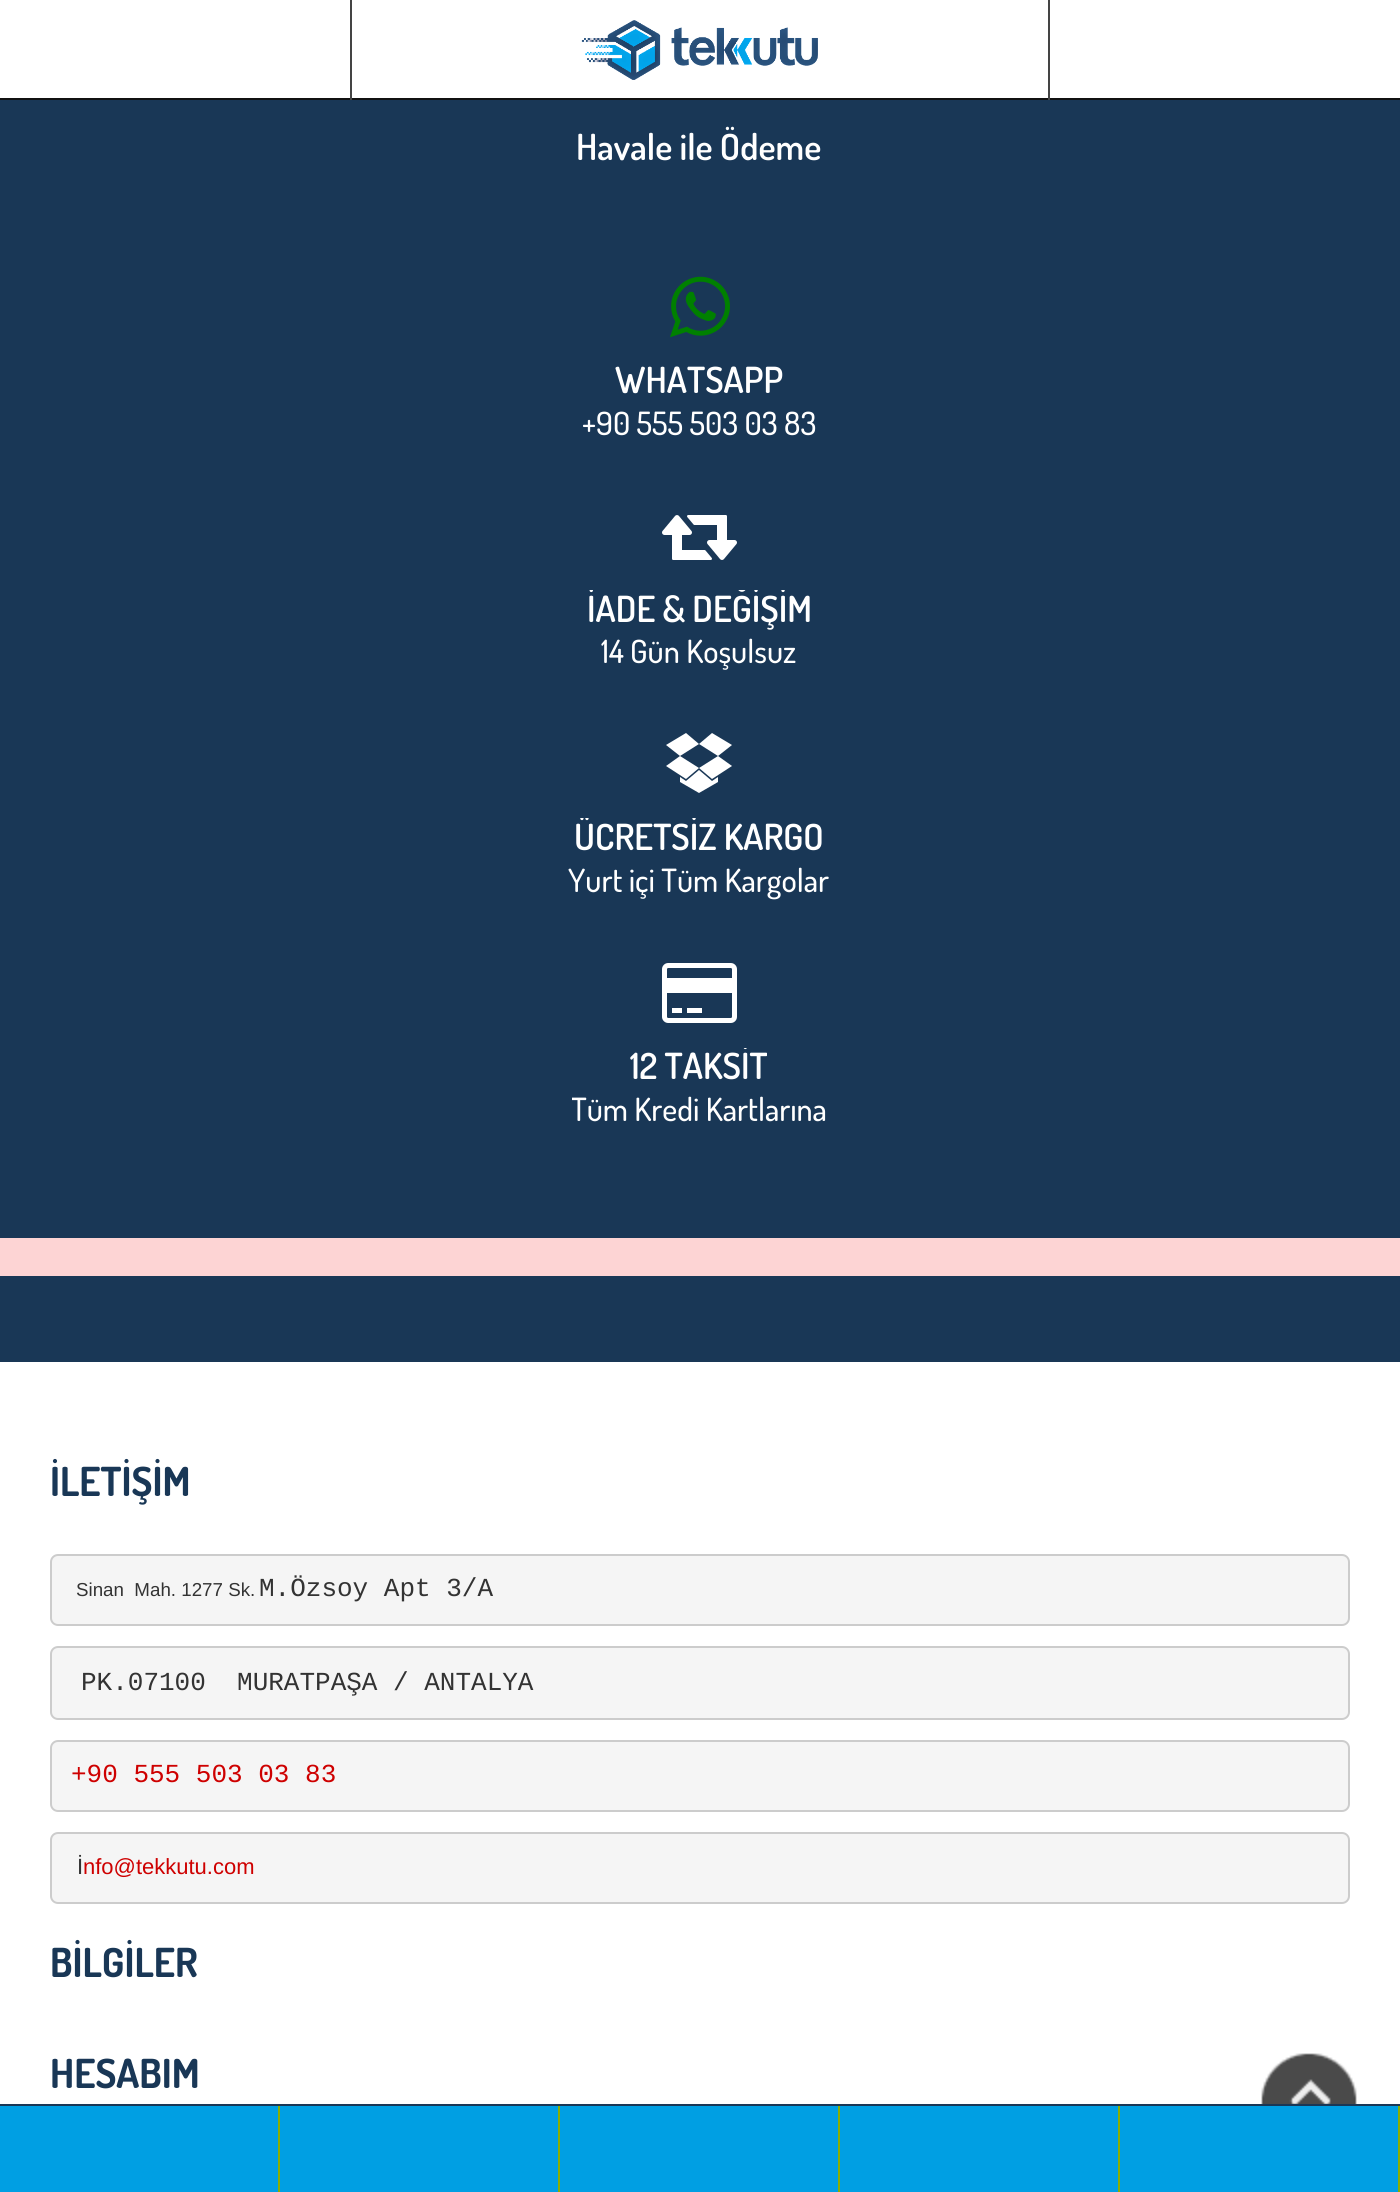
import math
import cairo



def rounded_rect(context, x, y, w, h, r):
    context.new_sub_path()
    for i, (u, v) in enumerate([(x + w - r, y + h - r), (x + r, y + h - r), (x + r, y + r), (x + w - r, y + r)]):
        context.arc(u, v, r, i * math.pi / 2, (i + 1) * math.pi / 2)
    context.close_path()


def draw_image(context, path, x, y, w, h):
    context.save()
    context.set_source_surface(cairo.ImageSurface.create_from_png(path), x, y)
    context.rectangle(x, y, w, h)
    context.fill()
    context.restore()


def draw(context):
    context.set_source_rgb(1, 1, 1)
    context.paint()
    context.set_source_rgb(17 / 255, 17 / 255, 17 / 255)
    context.rectangle(0, 98, 1400, 2)
    context.fill()
    context.set_source_rgb(68 / 255, 68 / 255, 68 / 255)
    context.rectangle(1048, 0, 2, 100)
    context.fill()
    context.rectangle(350, 0, 2, 100)
    context.fill()
    draw_image(context, "images/1.png", 581, 20, 237, 60)
    context.set_source_rgb(25 / 255, 55 / 255, 86 / 255)
    context.rectangle(0, 100, 1400, 1262)
    context.fill()
    draw_image(context, "images/2.png", 670, 276, 60, 62)
    draw_image(context, "images/3.png", 662, 515, 75, 45)
    context.set_source_rgb(1, 1, 1)
    context.new_path()
    context.move_to(680, 756)
    context.line_to(699, 768)
    context.line_to(686, 779)
    context.line_to(666, 766)
    context.close_path()
    context.move_to(718, 777)
    context.line_to(718, 782)
    context.line_to(699, 793)
    context.line_to(680, 782)
    context.line_to(680, 777)
    context.line_to(686, 781)
    context.line_to(699, 770)
    context.line_to(712, 781)
    context.close_path()
    context.move_to(686, 733)
    context.line_to(699, 744)
    context.line_to(680, 756)
    context.line_to(666, 745)
    context.close_path()
    context.move_to(718, 756)
    context.line_to(732, 766)
    context.line_to(712, 779)
    context.line_to(699, 768)
    context.close_path()
    context.move_to(712, 733)
    context.line_to(732, 745)
    context.line_to(718, 756)
    context.line_to(699, 744)
    context.close_path()
    context.fill()
    draw_image(context, "images/4.png", 662, 963, 75, 60)
    context.set_source_rgb(253 / 255, 212 / 255, 212 / 255)
    context.rectangle(0, 1238, 1400, 38)
    context.fill()
    context.set_source_rgb(245 / 255, 245 / 255, 245 / 255)
    rounded_rect(context, 51, 1555, 1298, 70, 7)
    context.fill_preserve()
    context.set_source_rgb(204 / 255, 204 / 255, 204 / 255)
    context.stroke()
    context.set_source_rgb(245 / 255, 245 / 255, 245 / 255)
    rounded_rect(context, 51, 1647, 1298, 72, 7)
    context.fill_preserve()
    context.set_source_rgb(204 / 255, 204 / 255, 204 / 255)
    context.stroke()
    context.set_source_rgb(245 / 255, 245 / 255, 245 / 255)
    rounded_rect(context, 51, 1741, 1298, 70, 7)
    context.fill_preserve()
    context.set_source_rgb(204 / 255, 204 / 255, 204 / 255)
    context.stroke()
    context.set_source_rgb(245 / 255, 245 / 255, 245 / 255)
    rounded_rect(context, 51, 1833, 1298, 70, 7)
    context.fill_preserve()
    context.set_source_rgb(204 / 255, 204 / 255, 204 / 255)
    context.stroke()
    draw_image(context, "images/5.png", 1261, 2053, 96, 51)
    context.set_source_rgb(0, 159 / 255, 227 / 255)
    context.rectangle(0, 2106, 1398, 86)
    context.fill()
    context.set_source_rgb(25 / 255, 55 / 255, 86 / 255)
    context.rectangle(0, 2104, 1400, 2)
    context.fill()
    context.set_source_rgb(139 / 255, 174 / 255, 0)
    context.rectangle(278, 2106, 2, 86)
    context.fill()
    context.rectangle(558, 2106, 2, 86)
    context.fill()
    context.rectangle(838, 2106, 2, 86)
    context.fill()
    context.rectangle(1118, 2106, 2, 86)
    context.fill()
    context.rectangle(1398, 2106, 2, 86)
    context.fill()
    context.select_font_face("Dosis SemiBold")
    context.set_font_size(36)
    context.set_source_rgb(1, 1, 1)
    context.move_to(576, 160)
    context.show_text("Havale ile Ödeme")
    context.move_to(615, 393)
    context.show_text("WHATSAPP")
    context.select_font_face("Dosis Medium")
    context.set_font_size(32)
    context.move_to(582, 435)
    context.show_text("+90 555 503 03 83")
    context.save()
    context.rectangle(586, 590, 226, 40)
    context.clip()
    context.select_font_face("Dosis SemiBold")
    context.set_font_size(36)
    context.move_to(587, 622)
    context.show_text("İADE & DEĞİŞİM")
    context.restore()
    context.move_to(601, 663)
    context.show_text("14 Gün Koşulsuz")
    context.save()
    context.rectangle(568, 818, 262, 40)
    context.clip()
    context.select_font_face("Dosis SemiBold")
    context.set_font_size(36)
    context.move_to(574, 850)
    context.show_text("ÜCRETSİZ KARGO")
    context.restore()
    context.move_to(568, 892)
    context.show_text("Yurt içi Tüm Kargolar")
    context.save()
    context.rectangle(572, 1048, 254, 38)
    context.clip()
    context.select_font_face("Dosis SemiBold")
    context.set_font_size(36)
    context.move_to(630, 1079)
    context.show_text("12 TAKSİT")
    context.restore()
    context.save()
    context.rectangle(572, 1048, 254, 84)
    context.clip()
    context.move_to(571, 1121)
    context.show_text("Tüm Kredi Kartlarına")
    context.restore()
    context.select_font_face("Dosis", cairo.FontSlant.NORMAL, cairo.FontWeight.BOLD)
    context.set_font_size(40)
    context.set_source_rgb(25 / 255, 55 / 255, 86 / 255)
    context.move_to(50, 1496)
    context.show_text("İLETİŞİM")
    context.select_font_face("Liberation Sans")
    context.set_font_size(18.75)
    context.set_source_rgb(51 / 255, 51 / 255, 51 / 255)
    context.move_to(76, 1596)
    context.show_text("Sinan  Mah. 1277 Sk.")
    context.select_font_face("Liberation Mono")
    context.set_font_size(26)
    context.move_to(259, 1596)
    context.show_text("M.Özsoy Apt 3/A")
    context.move_to(81, 1690)
    context.show_text("PK.07100  MURATPAŞA / ANTALYA")
    context.set_source_rgb(206 / 255, 0, 0)
    context.move_to(71, 1782)
    context.show_text("+90 555 503 03 83")
    context.select_font_face("Liberation Sans")
    context.set_font_size(22)
    context.set_source_rgb(51 / 255, 51 / 255, 51 / 255)
    context.move_to(77, 1874)
    context.show_text("İ")
    context.set_source_rgb(206 / 255, 0, 0)
    context.move_to(83, 1874)
    context.show_text("nfo@tekkutu.com")
    context.select_font_face("Dosis", cairo.FontSlant.NORMAL, cairo.FontWeight.BOLD)
    context.set_font_size(40)
    context.set_source_rgb(25 / 255, 55 / 255, 86 / 255)
    context.move_to(50, 1977)
    context.show_text("BİLGİLER")
    context.move_to(50, 2088)
    context.show_text("HESABIM")


surface = cairo.ImageSurface(cairo.Format.RGB24, 1400, 2192)
context = cairo.Context(surface)
options = cairo.FontOptions()
options.set_hint_metrics(cairo.HintMetrics.OFF)
options.set_hint_style(cairo.HintStyle.NONE)
context.set_font_options(options)
context.set_miter_limit(4)
draw(context)
surface.write_to_png("out.png")
